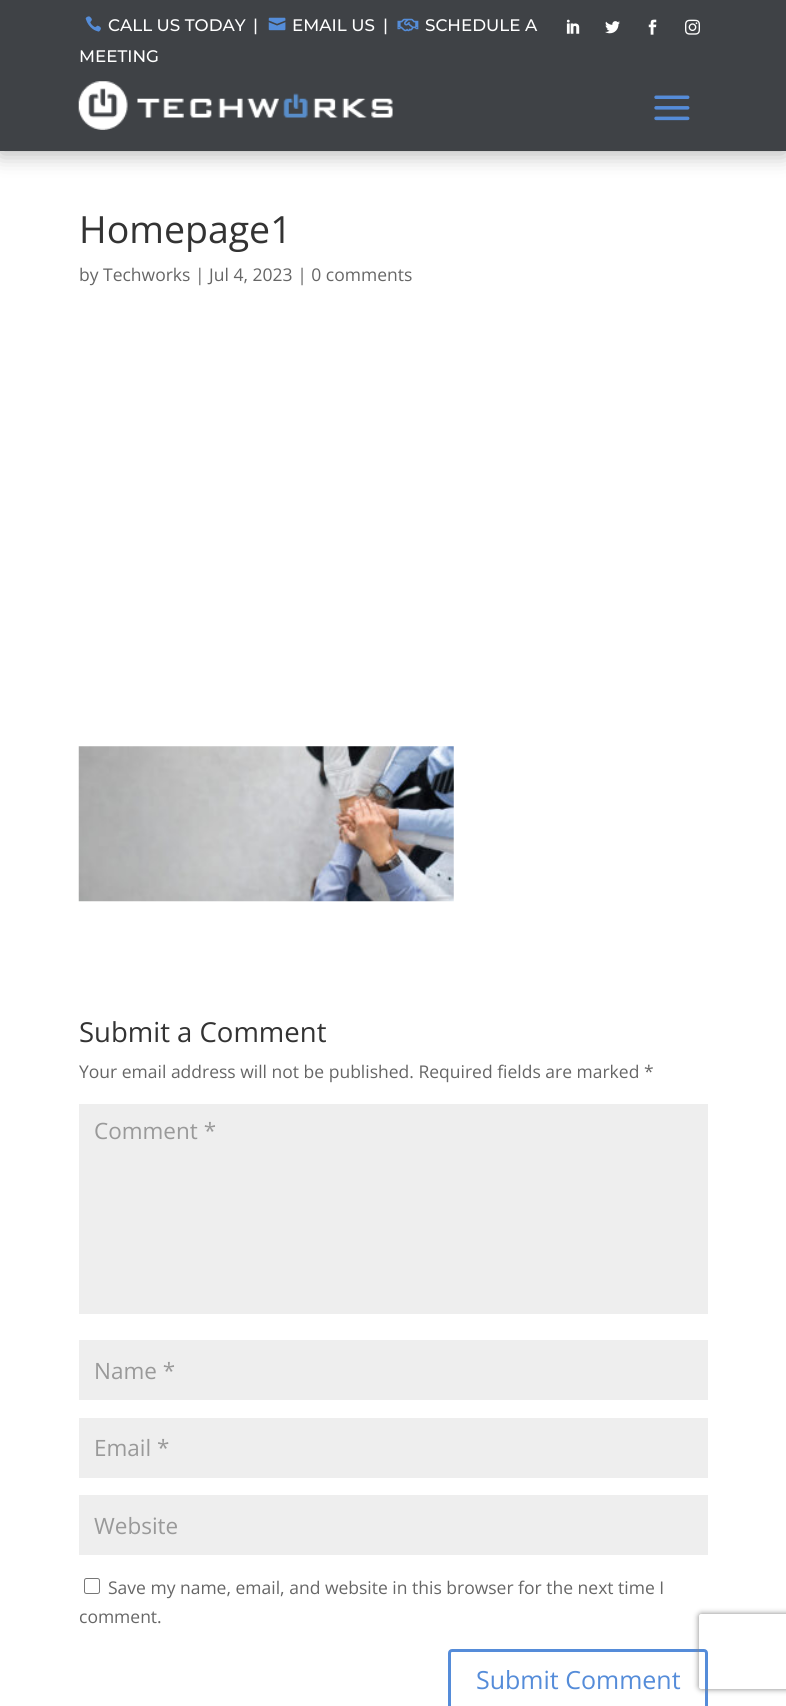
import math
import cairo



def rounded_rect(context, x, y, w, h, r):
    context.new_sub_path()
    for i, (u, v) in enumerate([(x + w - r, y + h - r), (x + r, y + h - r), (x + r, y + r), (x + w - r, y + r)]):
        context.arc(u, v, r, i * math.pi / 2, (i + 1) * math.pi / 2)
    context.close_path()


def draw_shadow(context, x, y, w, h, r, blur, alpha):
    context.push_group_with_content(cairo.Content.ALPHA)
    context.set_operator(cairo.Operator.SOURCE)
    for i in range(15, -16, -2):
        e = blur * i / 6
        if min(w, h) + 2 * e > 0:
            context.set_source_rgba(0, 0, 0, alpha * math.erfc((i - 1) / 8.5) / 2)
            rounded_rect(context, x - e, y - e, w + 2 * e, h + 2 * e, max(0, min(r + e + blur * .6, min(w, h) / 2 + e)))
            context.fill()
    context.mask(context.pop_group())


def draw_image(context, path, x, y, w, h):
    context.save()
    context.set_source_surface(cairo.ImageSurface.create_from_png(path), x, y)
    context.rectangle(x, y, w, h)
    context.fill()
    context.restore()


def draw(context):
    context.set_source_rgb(1, 1, 1)
    context.paint()
    context.set_source_rgb(0, 0, 0)
    draw_shadow(context, 0, 3, 786, 151, 0, 11, 0.3)
    context.set_source_rgb(63 / 255, 66 / 255, 70 / 255)
    context.rectangle(0, 0, 786, 151)
    context.fill()
    draw_image(context, "images/1.png", 85, 16, 16, 16)
    draw_image(context, "images/2.png", 268, 17, 18, 14)
    draw_image(context, "images/3.png", 397, 18, 22, 14)
    draw_image(context, "images/4.png", 566, 19, 14, 15)
    draw_image(context, "images/5.png", 605, 21, 15, 13)
    draw_image(context, "images/6.png", 648, 19, 9, 16)
    draw_image(context, "images/7.png", 685, 19, 15, 16)
    draw_image(context, "images/8.png", 78, 81, 315, 49)
    draw_image(context, "images/9.png", 654, 95, 36, 26)
    draw_image(context, "images/10.png", 78, 746, 376, 156)
    context.set_source_rgb(238 / 255, 238 / 255, 238 / 255)
    context.rectangle(79, 1104, 629, 210)
    context.fill()
    context.rectangle(79, 1340, 629, 60)
    context.fill()
    context.rectangle(79, 1418, 629, 60)
    context.fill()
    context.rectangle(79, 1495, 629, 60)
    context.fill()
    rounded_rect(context, 84.5, 1578.5, 15, 15, 2)
    context.set_source_rgb(118 / 255, 118 / 255, 118 / 255)
    context.set_line_width(1)
    context.stroke()
    rounded_rect(context, 449.5, 1650.5, 257, 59, 2.5)
    context.set_source_rgb(85 / 255, 140 / 255, 217 / 255)
    context.set_line_width(3)
    context.stroke()
    context.save()
    context.set_fill_rule(cairo.FillRule.EVEN_ODD)
    context.new_path()
    context.move_to(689, 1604)
    context.line_to(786, 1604)
    context.line_to(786, 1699)
    context.line_to(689, 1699)
    context.close_path()
    context.move_to(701.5, 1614)
    context.line_to(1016.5, 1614)
    context.curve_to(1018, 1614, 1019, 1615, 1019, 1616.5)
    context.line_to(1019, 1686.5)
    context.curve_to(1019, 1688, 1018, 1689, 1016.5, 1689)
    context.line_to(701.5, 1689)
    context.curve_to(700, 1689, 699, 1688, 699, 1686.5)
    context.line_to(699, 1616.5)
    context.curve_to(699, 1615, 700, 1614, 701.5, 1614)
    context.close_path()
    context.clip()
    context.set_source_rgb(128 / 255, 128 / 255, 128 / 255)
    draw_shadow(context, 699, 1614, 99, 75, 2.5, 3, 1)
    context.restore()
    context.select_font_face("Montserrat Medium")
    context.set_font_size(16.75)
    context.set_source_rgb(1, 1, 1)
    context.move_to(108, 31)
    context.show_text("CALL US TODAY")
    context.move_to(253, 31)
    context.show_text("|")
    context.move_to(292, 31)
    context.show_text("EMAIL US")
    context.move_to(383, 31)
    context.show_text("|")
    context.move_to(425, 31)
    context.show_text("SCHEDULE A")
    context.move_to(79, 62)
    context.show_text("MEETING")
    context.select_font_face("Open Sans")
    context.set_font_size(37.5)
    context.set_source_rgb(51 / 255, 51 / 255, 51 / 255)
    context.move_to(79, 243)
    context.show_text("Homepage1")
    context.set_font_size(17.5)
    context.set_source_rgb(102 / 255, 102 / 255, 102 / 255)
    context.move_to(79, 281)
    context.show_text("by Techworks | Jul 4, 2023 | 0 comments")
    context.set_font_size(27.5)
    context.set_source_rgb(51 / 255, 51 / 255, 51 / 255)
    context.move_to(79, 1042)
    context.show_text("Submit a Comment")
    context.set_font_size(17.5)
    context.set_source_rgb(102 / 255, 102 / 255, 102 / 255)
    context.move_to(79, 1078)
    context.show_text("Your email address will not be published. Required fields are marked *")
    context.set_font_size(22.5)
    context.set_source_rgb(153 / 255, 153 / 255, 153 / 255)
    context.move_to(94, 1139)
    context.show_text("Comment *")
    context.move_to(94, 1379)
    context.show_text("Name *")
    context.move_to(94, 1456)
    context.show_text("Email *")
    context.move_to(94, 1534)
    context.show_text("Website")
    context.set_font_size(17.5)
    context.set_source_rgb(102 / 255, 102 / 255, 102 / 255)
    context.move_to(108, 1594)
    context.show_text("Save my name, email, and website in this browser for the next time I")
    context.move_to(79, 1623)
    context.show_text("comment.")
    context.set_font_size(25)
    context.set_source_rgb(85 / 255, 140 / 255, 217 / 255)
    context.move_to(476, 1689)
    context.show_text("Submit Comment")


surface = cairo.ImageSurface(cairo.Format.RGB24, 786, 1706)
context = cairo.Context(surface)
options = cairo.FontOptions()
options.set_hint_metrics(cairo.HintMetrics.OFF)
options.set_hint_style(cairo.HintStyle.NONE)
context.set_font_options(options)
context.set_miter_limit(4)
draw(context)
surface.write_to_png("out.png")
